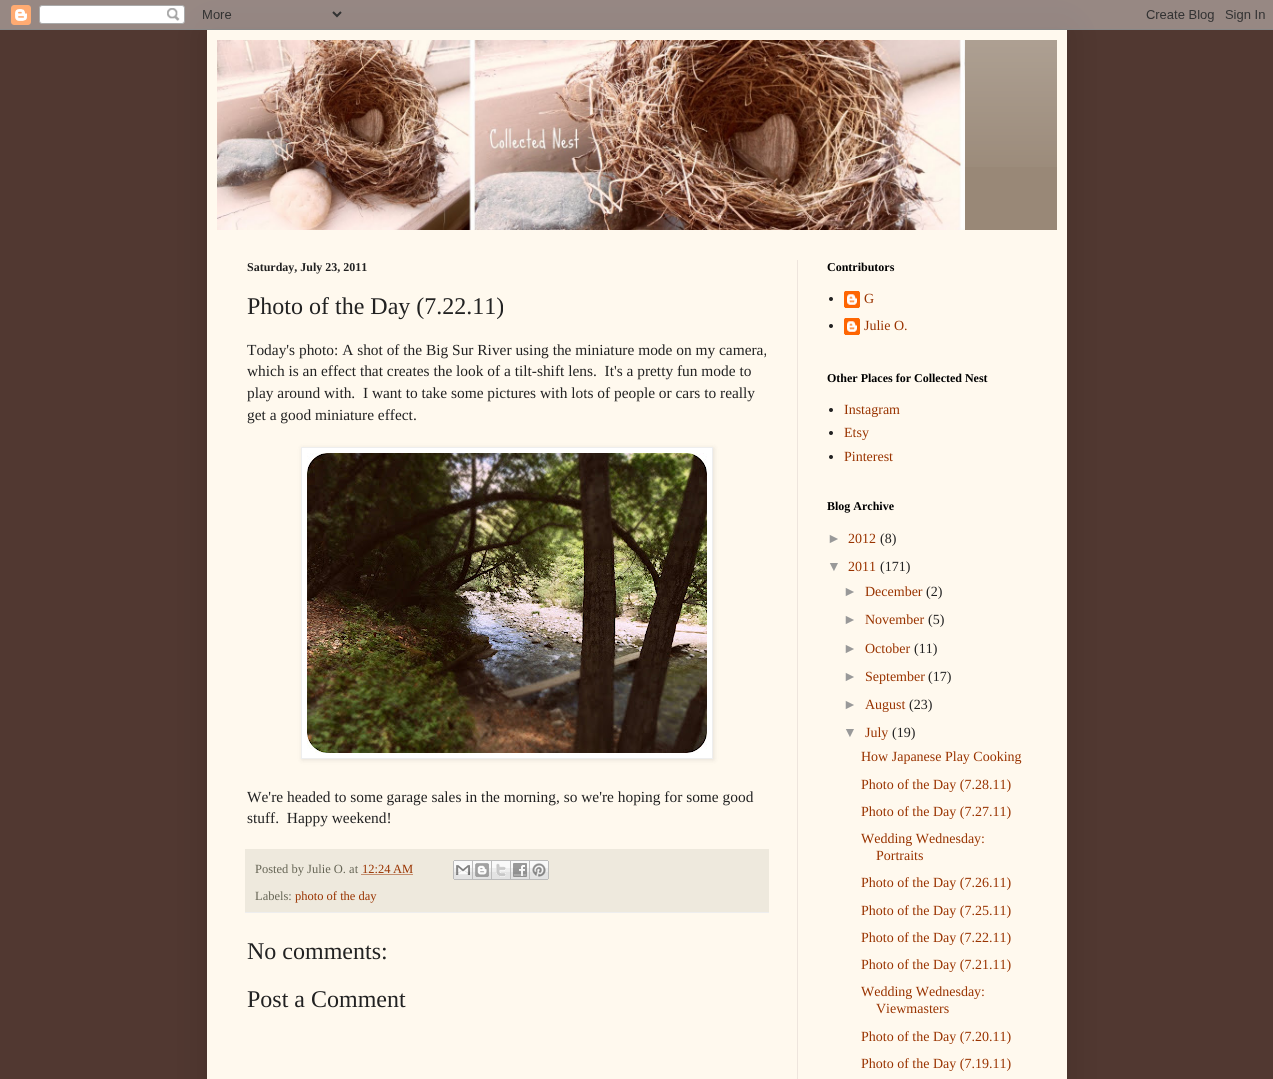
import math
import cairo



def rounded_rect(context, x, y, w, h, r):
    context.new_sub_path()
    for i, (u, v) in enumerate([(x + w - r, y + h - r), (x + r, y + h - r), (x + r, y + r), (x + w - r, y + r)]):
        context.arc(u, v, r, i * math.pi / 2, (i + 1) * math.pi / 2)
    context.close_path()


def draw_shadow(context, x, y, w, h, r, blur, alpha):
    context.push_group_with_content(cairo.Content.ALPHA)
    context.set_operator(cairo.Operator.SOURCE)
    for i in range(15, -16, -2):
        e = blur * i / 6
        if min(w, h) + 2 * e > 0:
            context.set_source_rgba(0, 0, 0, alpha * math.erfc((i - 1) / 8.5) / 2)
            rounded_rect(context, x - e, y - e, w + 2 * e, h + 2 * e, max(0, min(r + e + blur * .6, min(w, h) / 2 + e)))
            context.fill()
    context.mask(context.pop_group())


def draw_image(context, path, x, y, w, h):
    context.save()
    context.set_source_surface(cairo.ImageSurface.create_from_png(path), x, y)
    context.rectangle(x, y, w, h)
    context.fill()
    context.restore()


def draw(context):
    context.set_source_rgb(81 / 255, 56 / 255, 49 / 255)
    context.paint()
    context.set_source_rgb(0, 0, 0)
    draw_shadow(context, 207, 30, 860, 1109, 0, 20, 0.15)
    draw_image(context, "images/1.png", 0, 0, 1273, 30)
    context.set_source_rgb(1, 249 / 255, 238 / 255)
    context.rectangle(207, 30, 860, 1049)
    context.fill()
    context.set_source_rgb(153 / 255, 136 / 255, 119 / 255)
    context.rectangle(965, 40, 92, 190)
    context.fill()
    draw_image(context, "images/2.png", 965, 40, 92, 127)
    draw_image(context, "images/3.png", 217, 40, 748, 190)
    context.set_source_rgb(238 / 255, 229 / 255, 221 / 255)
    context.rectangle(797, 260, 1, 819)
    context.fill()
    context.set_source_rgb(0, 0, 0)
    draw_shadow(context, 302, 448, 412, 312, 0, 2.5, 0.1)
    context.set_source_rgb(1, 1, 1)
    context.rectangle(301.5, 447.5, 411, 311)
    context.fill_preserve()
    context.set_source_rgb(238 / 255, 238 / 255, 238 / 255)
    context.set_line_width(1)
    context.stroke()
    draw_image(context, "images/4.png", 307, 453, 400, 300)
    context.set_source_rgb(238 / 255, 233 / 255, 221 / 255)
    context.rectangle(245, 849, 524, 63)
    context.fill()
    context.set_source_rgb(238 / 255, 238 / 255, 238 / 255)
    context.rectangle(245, 912, 524, 1)
    context.fill()
    context.new_path()
    context.move_to(361.5, 874.5)
    context.line_to(413, 874.5)
    context.set_source_rgb(153 / 255, 51 / 255, 0)
    context.set_dash([1, 1])
    context.stroke()
    draw_image(context, "images/5.png", 453, 860, 20, 20)
    draw_image(context, "images/6.png", 473, 860, 19, 20)
    draw_image(context, "images/7.png", 492, 860, 19, 20)
    draw_image(context, "images/8.png", 511, 860, 19, 20)
    draw_image(context, "images/9.png", 530, 860, 19, 20)
    context.set_source_rgb(34 / 255, 34 / 255, 34 / 255)
    context.arc(831, 299, 2, 0, 2 * math.pi)
    context.fill()
    draw_image(context, "images/10.png", 844, 291, 16, 17)
    context.arc(831, 326, 2, 0, 2 * math.pi)
    context.fill()
    draw_image(context, "images/10.png", 844, 318, 16, 17)
    context.arc(831, 410, 2, 0, 2 * math.pi)
    context.fill()
    context.arc(831, 433, 2, 0, 2 * math.pi)
    context.fill()
    context.arc(831, 457, 2, 0, 2 * math.pi)
    context.fill()
    context.select_font_face("Liberation Serif", cairo.FontSlant.NORMAL, cairo.FontWeight.BOLD)
    context.set_font_size(12)
    context.move_to(247, 271)
    context.show_text("Saturday, July 23, 2011")
    context.select_font_face("Liberation Serif")
    context.set_font_size(24)
    context.move_to(247, 314)
    context.show_text("Photo of the Day (7.22.11)")
    context.set_font_size(15.4)
    context.move_to(247, 355)
    context.show_text("Today's photo: A shot of the Big Sur River using the miniature mode on my camera,")
    context.move_to(247, 376)
    context.show_text("which is an effect that creates the look of a tilt-shift lens.  It's a pretty fun mode to")
    context.move_to(247, 398)
    context.show_text("play around with.  I want to take some pictures with lots of people or cars to really")
    context.move_to(247, 420)
    context.show_text("get a good miniature effect.")
    context.move_to(247, 802)
    context.show_text("We're headed to some garage sales in the morning, so we're hoping for some good")
    context.move_to(247, 823)
    context.show_text("stuff.  Happy weekend!")
    context.set_font_size(12.5)
    context.set_source_rgb(102 / 255, 101 / 255, 85 / 255)
    context.move_to(255, 873)
    context.show_text("Posted by Julie O. at")
    context.set_source_rgb(153 / 255, 51 / 255, 0)
    context.move_to(362, 873)
    context.show_text("12:24 AM")
    context.set_source_rgb(102 / 255, 101 / 255, 85 / 255)
    context.move_to(255, 900)
    context.show_text("Labels:")
    context.set_source_rgb(153 / 255, 51 / 255, 0)
    context.move_to(295, 900)
    context.show_text("photo of the day")
    context.set_font_size(24)
    context.set_source_rgb(34 / 255, 34 / 255, 34 / 255)
    context.move_to(247, 959)
    context.show_text("No comments:")
    context.move_to(247, 1007)
    context.show_text("Post a Comment")
    context.select_font_face("Liberation Serif", cairo.FontSlant.NORMAL, cairo.FontWeight.BOLD)
    context.set_font_size(12)
    context.set_source_rgb(0, 0, 0)
    context.move_to(827, 271)
    context.show_text("Contributors")
    context.select_font_face("Liberation Serif")
    context.set_font_size(14)
    context.set_source_rgb(153 / 255, 51 / 255, 0)
    context.move_to(864, 303)
    context.show_text("G")
    context.move_to(864, 330)
    context.show_text("Julie O.")
    context.select_font_face("Liberation Serif", cairo.FontSlant.NORMAL, cairo.FontWeight.BOLD)
    context.set_font_size(12)
    context.set_source_rgb(0, 0, 0)
    context.move_to(827, 382)
    context.show_text("Other Places for Collected Nest")
    context.select_font_face("Liberation Serif")
    context.set_font_size(14)
    context.set_source_rgb(153 / 255, 51 / 255, 0)
    context.move_to(844, 414)
    context.show_text("Instagram")
    context.move_to(844, 437)
    context.show_text("Etsy")
    context.move_to(844, 461)
    context.show_text("Pinterest")
    context.select_font_face("Liberation Serif", cairo.FontSlant.NORMAL, cairo.FontWeight.BOLD)
    context.set_font_size(12)
    context.set_source_rgb(0, 0, 0)
    context.move_to(827, 510)
    context.show_text("Blog Archive")
    context.select_font_face("Liberation Sans")
    context.set_font_size(14)
    context.set_source_rgb(153 / 255, 153 / 255, 153 / 255)
    context.move_to(827, 543)
    context.show_text("►")
    context.select_font_face("Liberation Serif")
    context.set_source_rgb(153 / 255, 51 / 255, 0)
    context.move_to(848, 543)
    context.show_text("2012")
    context.set_source_rgb(34 / 255, 34 / 255, 34 / 255)
    context.move_to(880, 543)
    context.show_text("(8)")
    context.select_font_face("Liberation Sans")
    context.set_source_rgb(153 / 255, 153 / 255, 153 / 255)
    context.move_to(827, 571)
    context.show_text("▼")
    context.select_font_face("Liberation Serif")
    context.set_source_rgb(153 / 255, 51 / 255, 0)
    context.move_to(848, 571)
    context.show_text("2011")
    context.set_source_rgb(34 / 255, 34 / 255, 34 / 255)
    context.move_to(880, 571)
    context.show_text("(171)")
    context.select_font_face("Liberation Sans")
    context.set_source_rgb(153 / 255, 153 / 255, 153 / 255)
    context.move_to(843, 596)
    context.show_text("►")
    context.select_font_face("Liberation Serif")
    context.set_source_rgb(153 / 255, 51 / 255, 0)
    context.move_to(865, 596)
    context.show_text("December")
    context.set_source_rgb(34 / 255, 34 / 255, 34 / 255)
    context.move_to(926, 596)
    context.show_text("(2)")
    context.select_font_face("Liberation Sans")
    context.set_source_rgb(153 / 255, 153 / 255, 153 / 255)
    context.move_to(843, 624)
    context.show_text("►")
    context.select_font_face("Liberation Serif")
    context.set_source_rgb(153 / 255, 51 / 255, 0)
    context.move_to(865, 624)
    context.show_text("November")
    context.set_source_rgb(34 / 255, 34 / 255, 34 / 255)
    context.move_to(928, 624)
    context.show_text("(5)")
    context.select_font_face("Liberation Sans")
    context.set_source_rgb(153 / 255, 153 / 255, 153 / 255)
    context.move_to(843, 653)
    context.show_text("►")
    context.select_font_face("Liberation Serif")
    context.set_source_rgb(153 / 255, 51 / 255, 0)
    context.move_to(865, 653)
    context.show_text("October")
    context.set_source_rgb(34 / 255, 34 / 255, 34 / 255)
    context.move_to(914, 653)
    context.show_text("(11)")
    context.select_font_face("Liberation Sans")
    context.set_source_rgb(153 / 255, 153 / 255, 153 / 255)
    context.move_to(843, 681)
    context.show_text("►")
    context.select_font_face("Liberation Serif")
    context.set_source_rgb(153 / 255, 51 / 255, 0)
    context.move_to(865, 681)
    context.show_text("September")
    context.set_source_rgb(34 / 255, 34 / 255, 34 / 255)
    context.move_to(928, 681)
    context.show_text("(17)")
    context.select_font_face("Liberation Sans")
    context.set_source_rgb(153 / 255, 153 / 255, 153 / 255)
    context.move_to(843, 709)
    context.show_text("►")
    context.select_font_face("Liberation Serif")
    context.set_source_rgb(153 / 255, 51 / 255, 0)
    context.move_to(865, 709)
    context.show_text("August")
    context.set_source_rgb(34 / 255, 34 / 255, 34 / 255)
    context.move_to(909, 709)
    context.show_text("(23)")
    context.select_font_face("Liberation Sans")
    context.set_source_rgb(153 / 255, 153 / 255, 153 / 255)
    context.move_to(843, 737)
    context.show_text("▼")
    context.select_font_face("Liberation Serif")
    context.set_source_rgb(153 / 255, 51 / 255, 0)
    context.move_to(865, 737)
    context.show_text("July")
    context.set_source_rgb(34 / 255, 34 / 255, 34 / 255)
    context.move_to(892, 737)
    context.show_text("(19)")
    context.set_source_rgb(153 / 255, 51 / 255, 0)
    context.move_to(861, 761)
    context.show_text("How Japanese Play Cooking")
    context.move_to(861, 789)
    context.show_text("Photo of the Day (7.28.11)")
    context.move_to(861, 816)
    context.show_text("Photo of the Day (7.27.11)")
    context.move_to(861, 843)
    context.show_text("Wedding Wednesday:")
    context.move_to(876, 860)
    context.show_text("Portraits")
    context.move_to(861, 887)
    context.show_text("Photo of the Day (7.26.11)")
    context.move_to(861, 915)
    context.show_text("Photo of the Day (7.25.11)")
    context.move_to(861, 942)
    context.show_text("Photo of the Day (7.22.11)")
    context.move_to(861, 969)
    context.show_text("Photo of the Day (7.21.11)")
    context.move_to(861, 996)
    context.show_text("Wedding Wednesday:")
    context.move_to(876, 1013)
    context.show_text("Viewmasters")
    context.move_to(861, 1041)
    context.show_text("Photo of the Day (7.20.11)")
    context.move_to(861, 1068)
    context.show_text("Photo of the Day (7.19.11)")


surface = cairo.ImageSurface(cairo.Format.RGB24, 1273, 1079)
context = cairo.Context(surface)
options = cairo.FontOptions()
options.set_hint_metrics(cairo.HintMetrics.OFF)
options.set_hint_style(cairo.HintStyle.NONE)
context.set_font_options(options)
context.set_miter_limit(4)
draw(context)
surface.write_to_png("out.png")
